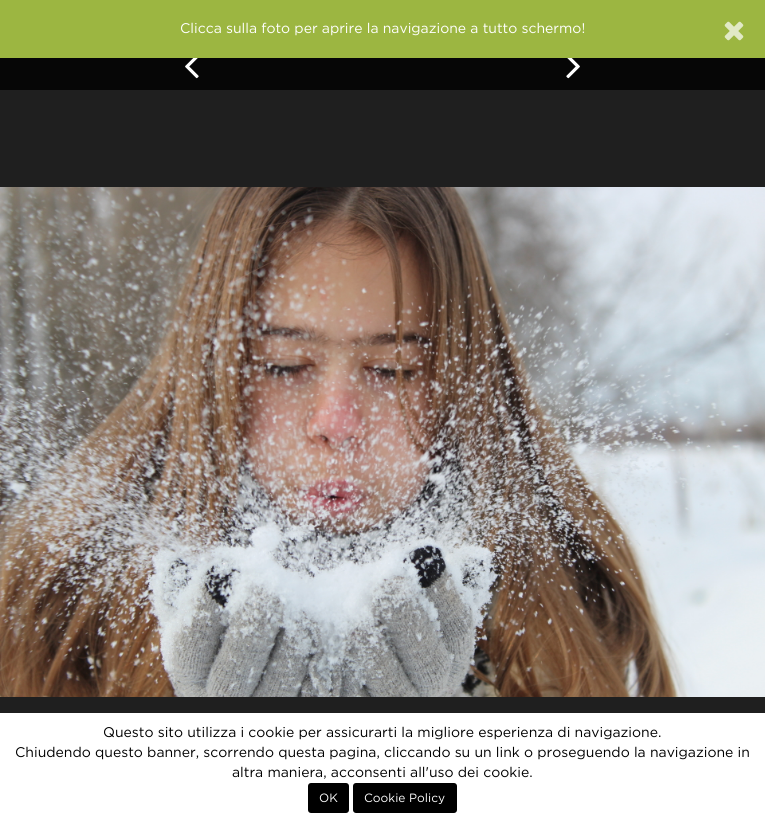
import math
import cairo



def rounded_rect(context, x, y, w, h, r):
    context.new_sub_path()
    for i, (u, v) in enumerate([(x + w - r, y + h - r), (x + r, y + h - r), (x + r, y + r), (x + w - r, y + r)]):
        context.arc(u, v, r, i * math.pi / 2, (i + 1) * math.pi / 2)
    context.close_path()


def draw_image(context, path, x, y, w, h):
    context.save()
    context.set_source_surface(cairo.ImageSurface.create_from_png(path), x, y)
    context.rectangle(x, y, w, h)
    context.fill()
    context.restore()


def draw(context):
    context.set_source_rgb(31 / 255, 31 / 255, 31 / 255)
    context.paint()
    context.set_source_rgb(156 / 255, 182 / 255, 65 / 255)
    context.rectangle(0, 0, 765, 58)
    context.fill()
    draw_image(context, "images/1.png", 724, 21, 20, 20)
    context.set_source_rgb(6 / 255, 6 / 255, 6 / 255)
    context.rectangle(0, 58, 765, 32)
    context.fill()
    draw_image(context, "images/2.png", 185, 58, 14, 21)
    draw_image(context, "images/3.png", 566, 58, 14, 21)
    draw_image(context, "images/4.png", 0, 187, 765, 510)
    context.set_source_rgb(1, 1, 1)
    context.rectangle(0, 713, 765, 110)
    context.fill()
    context.set_source_rgb(0, 0, 0)
    rounded_rect(context, 308, 783, 41, 30, 3)
    context.fill()
    rounded_rect(context, 353, 783, 104, 30, 3)
    context.fill()
    context.select_font_face("Gotham")
    context.set_font_size(14)
    context.set_source_rgb(1, 1, 1)
    context.move_to(180, 33)
    context.show_text("Clicca sulla foto per aprire la navigazione a tutto schermo!")
    context.set_source_rgb(0, 0, 0)
    context.move_to(103, 737)
    context.show_text("Questo sito utilizza i cookie per assicurarti la migliore esperienza di navigazione.")
    context.move_to(15, 757)
    context.show_text("Chiudendo questo banner, scorrendo questa pagina, cliccando su un link o proseguendo la navigazione in")
    context.move_to(232, 777)
    context.show_text("altra maniera, acconsenti all'uso dei cookie.")
    context.set_font_size(12)
    context.set_source_rgb(1, 1, 1)
    context.move_to(319, 802)
    context.show_text("OK")
    context.move_to(364, 802)
    context.show_text("Cookie Policy")


surface = cairo.ImageSurface(cairo.Format.RGB24, 765, 823)
context = cairo.Context(surface)
options = cairo.FontOptions()
options.set_hint_metrics(cairo.HintMetrics.OFF)
options.set_hint_style(cairo.HintStyle.NONE)
context.set_font_options(options)
context.set_miter_limit(4)
draw(context)
surface.write_to_png("out.png")
